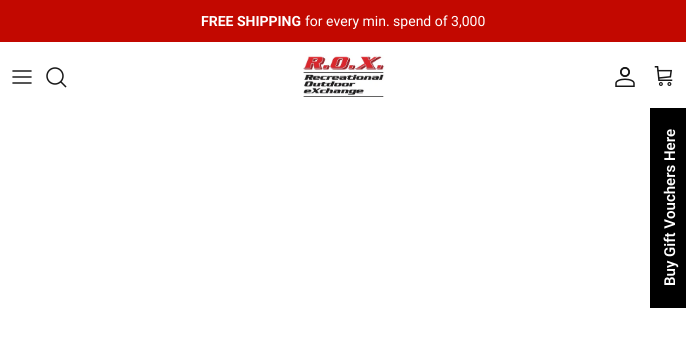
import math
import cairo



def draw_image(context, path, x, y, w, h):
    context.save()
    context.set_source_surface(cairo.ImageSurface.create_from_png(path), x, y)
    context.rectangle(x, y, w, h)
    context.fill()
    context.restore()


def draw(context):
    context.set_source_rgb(1, 1, 1)
    context.paint()
    context.set_source_rgb(194 / 255, 8 / 255, 0)
    context.rectangle(0, 0, 686, 42)
    context.fill()
    context.new_path()
    context.move_to(13, 77)
    context.line_to(31, 77)
    context.move_to(13, 71)
    context.line_to(31, 71)
    context.move_to(13, 83)
    context.line_to(31, 83)
    context.set_source_rgb(23 / 255, 23 / 255, 23 / 255)
    context.set_line_width(1.5)
    context.set_line_cap(cairo.LineCap.ROUND)
    context.set_line_join(cairo.LineJoin.ROUND)
    context.stroke()
    context.arc(55, 76, 8, 0, 2 * math.pi)
    context.set_line_cap(cairo.LineCap.BUTT)
    context.set_line_join(cairo.LineJoin.MITER)
    context.stroke()
    context.new_path()
    context.move_to(61, 82)
    context.line_to(65.5, 86.5)
    context.set_line_cap(cairo.LineCap.SQUARE)
    context.stroke()
    draw_image(context, "images/1.png", 303, 55, 82, 42)
    draw_image(context, "images/2.png", 615, 67, 20, 20)
    draw_image(context, "images/3.png", 654, 66, 19, 20)
    context.set_source_rgb(0, 0, 0)
    context.rectangle(650, 108, 36, 200)
    context.fill()
    context.select_font_face("Roboto", cairo.FontSlant.NORMAL, cairo.FontWeight.BOLD)
    context.set_font_size(14)
    context.set_source_rgb(1, 1, 1)
    context.move_to(201, 26)
    context.show_text("FREE SHIPPING")
    context.select_font_face("Roboto")
    context.move_to(305, 26)
    context.show_text("for every min. spend of 3,000")
    context.select_font_face("Roboto SemiBold")
    context.set_font_size(15)
    context.save()
    context.translate(675, 286)
    context.rotate(-90 * math.pi / 180)
    context.move_to(0, 0)
    context.show_text("Buy Gift Vouchers Here")
    context.restore()


surface = cairo.ImageSurface(cairo.Format.RGB24, 686, 344)
context = cairo.Context(surface)
options = cairo.FontOptions()
options.set_hint_metrics(cairo.HintMetrics.OFF)
options.set_hint_style(cairo.HintStyle.NONE)
context.set_font_options(options)
context.set_miter_limit(4)
draw(context)
surface.write_to_png("out.png")
